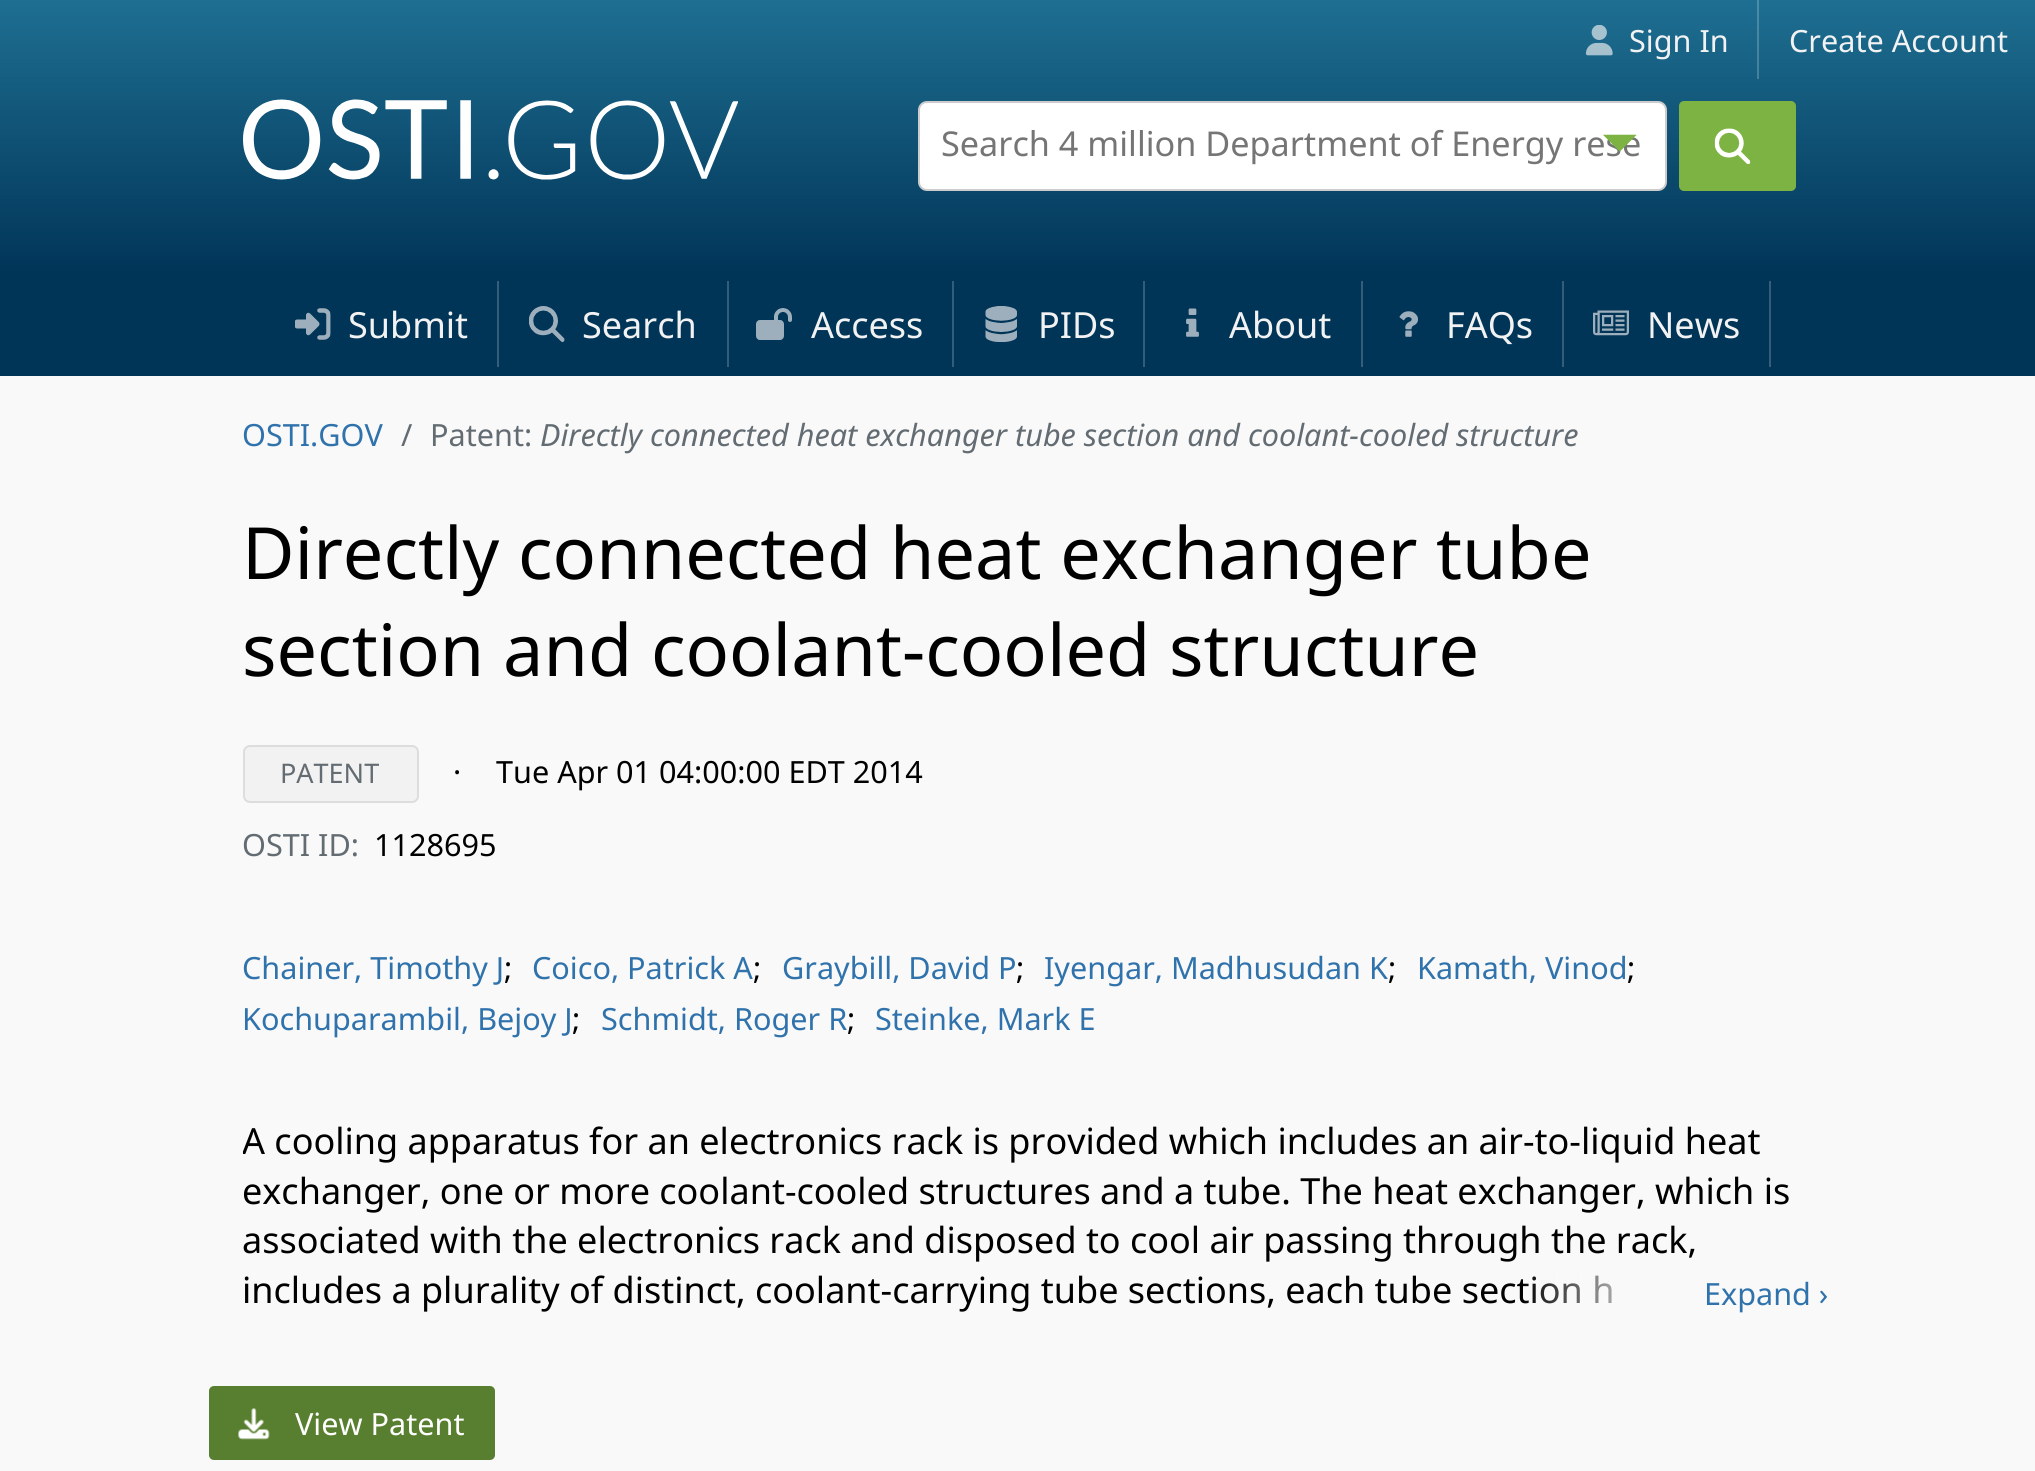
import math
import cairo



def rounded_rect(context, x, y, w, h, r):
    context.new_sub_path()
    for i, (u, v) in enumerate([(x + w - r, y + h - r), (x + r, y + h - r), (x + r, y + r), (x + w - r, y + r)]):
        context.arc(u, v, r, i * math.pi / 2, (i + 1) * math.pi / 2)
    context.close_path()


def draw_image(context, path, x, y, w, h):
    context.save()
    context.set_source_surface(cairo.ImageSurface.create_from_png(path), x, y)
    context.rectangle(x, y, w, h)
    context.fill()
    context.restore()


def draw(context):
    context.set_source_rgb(249 / 255, 249 / 255, 249 / 255)
    context.paint()
    context.set_source_rgb(1 / 255, 53 / 255, 88 / 255)
    context.rectangle(0, 272, 2035, 104)
    context.fill()
    gradient = cairo.LinearGradient(1018, 0, 1018, 272)
    gradient.add_color_stop_rgba(0, 30 / 255, 111 / 255, 146 / 255, 1)
    gradient.add_color_stop_rgba(1, 1 / 255, 53 / 255, 88 / 255, 1)
    context.set_source(gradient)
    context.rectangle(0, 0, 2035, 272)
    context.fill()
    draw_image(context, "images/1.png", 1585, 25, 28, 31)
    gradient = cairo.LinearGradient(1018, 0, 1018, 272)
    gradient.add_color_stop_rgba(0, 75 / 255, 140 / 255, 168 / 255, 1)
    gradient.add_color_stop_rgba(1, 52 / 255, 93 / 255, 121 / 255, 1)
    context.set_source(gradient)
    context.rectangle(1757, 0, 2, 79)
    context.fill()
    draw_image(context, "images/2.png", 243, 99, 495, 81)
    context.set_source_rgb(1, 1, 1)
    rounded_rect(context, 919, 102, 747, 88, 8)
    context.fill_preserve()
    context.set_source_rgb(204 / 255, 204 / 255, 204 / 255)
    context.stroke()
    context.set_source_rgb(124 / 255, 179 / 255, 66 / 255)
    rounded_rect(context, 1679, 101, 117, 90, 5)
    context.fill()
    draw_image(context, "images/3.png", 1714, 128, 37, 36)
    context.set_source_rgb(52 / 255, 93 / 255, 121 / 255)
    context.rectangle(497, 281, 2, 86)
    context.fill()
    draw_image(context, "images/4.png", 295, 308, 36, 32)
    context.rectangle(727, 281, 2, 86)
    context.fill()
    draw_image(context, "images/5.png", 529, 306, 36, 36)
    context.rectangle(952, 281, 2, 86)
    context.fill()
    draw_image(context, "images/6.png", 756, 308, 36, 32)
    context.rectangle(1143, 281, 2, 86)
    context.fill()
    draw_image(context, "images/7.png", 985, 306, 32, 36)
    context.rectangle(1361, 281, 2, 86)
    context.fill()
    draw_image(context, "images/8.png", 1186, 308, 13, 29)
    context.rectangle(1562, 281, 2, 86)
    context.fill()
    draw_image(context, "images/9.png", 1399, 311, 19, 26)
    context.rectangle(1769, 281, 2, 86)
    context.fill()
    draw_image(context, "images/10.png", 1593, 310, 36, 26)
    context.set_source_rgb(242 / 255, 242 / 255, 242 / 255)
    rounded_rect(context, 244, 746, 174, 56, 6)
    context.fill_preserve()
    context.set_source_rgb(221 / 255, 221 / 255, 221 / 255)
    context.stroke()
    context.set_source_rgb(88 / 255, 127 / 255, 47 / 255)
    rounded_rect(context, 209, 1386, 286, 74, 5)
    context.fill()
    draw_image(context, "images/11.png", 238, 1408, 32, 32)
    context.select_font_face("Noto Sans")
    context.set_font_size(30.6)
    context.set_source_rgb(242 / 255, 242 / 255, 242 / 255)
    context.move_to(1629, 52)
    context.show_text("Sign In")
    context.move_to(1789, 52)
    context.show_text("Create Account")
    context.set_font_size(34.2)
    context.set_source_rgb(117 / 255, 117 / 255, 117 / 255)
    context.move_to(941, 156)
    context.show_text("Search 4 million Department of Energy rese")
    context.select_font_face("FreeSans")
    context.set_font_size(47)
    context.set_source_rgb(124 / 255, 179 / 255, 66 / 255)
    context.move_to(1601, 158)
    context.show_text("⏷")
    context.select_font_face("Noto Sans")
    context.set_font_size(36)
    context.set_source_rgb(242 / 255, 242 / 255, 242 / 255)
    context.move_to(348, 338)
    context.show_text("Submit")
    context.move_to(582, 338)
    context.show_text("Search")
    context.move_to(811, 338)
    context.show_text("Access")
    context.move_to(1038, 338)
    context.show_text("PIDs")
    context.move_to(1229, 338)
    context.show_text("About")
    context.move_to(1446, 338)
    context.show_text("FAQs")
    context.move_to(1647, 338)
    context.show_text("News")
    context.set_font_size(30.6)
    context.set_source_rgb(48 / 255, 115 / 255, 172 / 255)
    context.move_to(242, 446)
    context.show_text("OSTI.GOV")
    context.set_source_rgb(99 / 255, 108 / 255, 114 / 255)
    context.move_to(401, 446)
    context.show_text("/")
    context.move_to(430, 446)
    context.show_text("Patent:")
    context.select_font_face("Noto Sans", cairo.FontSlant.ITALIC)
    context.move_to(540, 446)
    context.show_text("Directly connected heat exchanger tube section and coolant-cooled structure")
    context.select_font_face("Noto Sans")
    context.set_font_size(72)
    context.set_source_rgb(0, 0, 0)
    context.move_to(242, 579)
    context.show_text("Directly connected heat exchanger tube")
    context.move_to(242, 676)
    context.show_text("section and coolant-cooled structure")
    context.set_font_size(27)
    context.set_source_rgb(99 / 255, 108 / 255, 114 / 255)
    context.move_to(280, 783)
    context.show_text("PATENT")
    context.set_font_size(30.6)
    context.set_source_rgb(0, 0, 0)
    context.move_to(453, 783)
    context.show_text("·")
    context.move_to(496, 783)
    context.show_text("Tue Apr 01 04:00:00 EDT 2014")
    context.set_source_rgb(99 / 255, 108 / 255, 114 / 255)
    context.move_to(242, 856)
    context.show_text("OSTI ID:")
    context.set_source_rgb(0, 0, 0)
    context.move_to(374, 856)
    context.show_text("1128695")
    context.set_source_rgb(48 / 255, 115 / 255, 172 / 255)
    context.move_to(242, 979)
    context.show_text("Chainer, Timothy J")
    context.set_source_rgb(0, 0, 0)
    context.move_to(504, 979)
    context.show_text(";")
    context.set_source_rgb(48 / 255, 115 / 255, 172 / 255)
    context.move_to(532, 979)
    context.show_text("Coico, Patrick A")
    context.set_source_rgb(0, 0, 0)
    context.move_to(753, 979)
    context.show_text(";")
    context.set_source_rgb(48 / 255, 115 / 255, 172 / 255)
    context.move_to(782, 979)
    context.show_text("Graybill, David P")
    context.set_source_rgb(0, 0, 0)
    context.move_to(1016, 979)
    context.show_text(";")
    context.set_source_rgb(48 / 255, 115 / 255, 172 / 255)
    context.move_to(1044, 979)
    context.show_text("Iyengar, Madhusudan K")
    context.set_source_rgb(0, 0, 0)
    context.move_to(1388, 979)
    context.show_text(";")
    context.set_source_rgb(48 / 255, 115 / 255, 172 / 255)
    context.move_to(1417, 979)
    context.show_text("Kamath, Vinod")
    context.set_source_rgb(0, 0, 0)
    context.move_to(1627, 979)
    context.show_text(";")
    context.set_source_rgb(48 / 255, 115 / 255, 172 / 255)
    context.move_to(242, 1030)
    context.show_text("Kochuparambil, Bejoy J")
    context.set_source_rgb(0, 0, 0)
    context.move_to(572, 1030)
    context.show_text(";")
    context.set_source_rgb(48 / 255, 115 / 255, 172 / 255)
    context.move_to(601, 1030)
    context.show_text("Schmidt, Roger R")
    context.set_source_rgb(0, 0, 0)
    context.move_to(847, 1030)
    context.show_text(";")
    context.set_source_rgb(48 / 255, 115 / 255, 172 / 255)
    context.move_to(875, 1030)
    context.show_text("Steinke, Mark E")
    context.save()
    context.rectangle(243, 1116, 1553, 198)
    context.clip()
    context.set_font_size(36)
    context.set_source_rgb(0, 0, 0)
    context.move_to(242, 1154)
    context.show_text("A cooling apparatus for an electronics rack is provided which includes an air-to-liquid heat")
    context.restore()
    context.set_font_size(36)
    context.set_source_rgb(0, 0, 0)
    context.move_to(242, 1204)
    context.show_text("exchanger, one or more coolant-cooled structures and a tube. The heat exchanger, which is")
    context.move_to(242, 1253)
    context.show_text("associated with the electronics rack and disposed to cool air passing through the rack,")
    context.move_to(242, 1303)
    context.show_text("includes a plurality of distinct, coolant-carrying tube sections, each tube section h")
    gradient = cairo.LinearGradient(1521, 1293, 1829, 1293)
    gradient.add_color_stop_rgba(0, 249 / 255, 249 / 255, 249 / 255, 0)
    gradient.add_color_stop_rgba(0.45, 249 / 255, 249 / 255, 249 / 255, 1)
    gradient.add_color_stop_rgba(1, 249 / 255, 249 / 255, 249 / 255, 1)
    context.set_source(gradient)
    context.rectangle(1524, 1275, 88, 29)
    context.fill()
    context.set_font_size(30.6)
    context.set_source_rgb(48 / 255, 115 / 255, 172 / 255)
    context.move_to(1704, 1305)
    context.show_text("Expand ›")
    context.set_source_rgb(1, 1, 1)
    context.move_to(295, 1435)
    context.show_text("View Patent")


surface = cairo.ImageSurface(cairo.Format.RGB24, 2035, 1471)
context = cairo.Context(surface)
options = cairo.FontOptions()
options.set_hint_metrics(cairo.HintMetrics.OFF)
options.set_hint_style(cairo.HintStyle.NONE)
context.set_font_options(options)
context.set_miter_limit(4)
draw(context)
surface.write_to_png("out.png")
